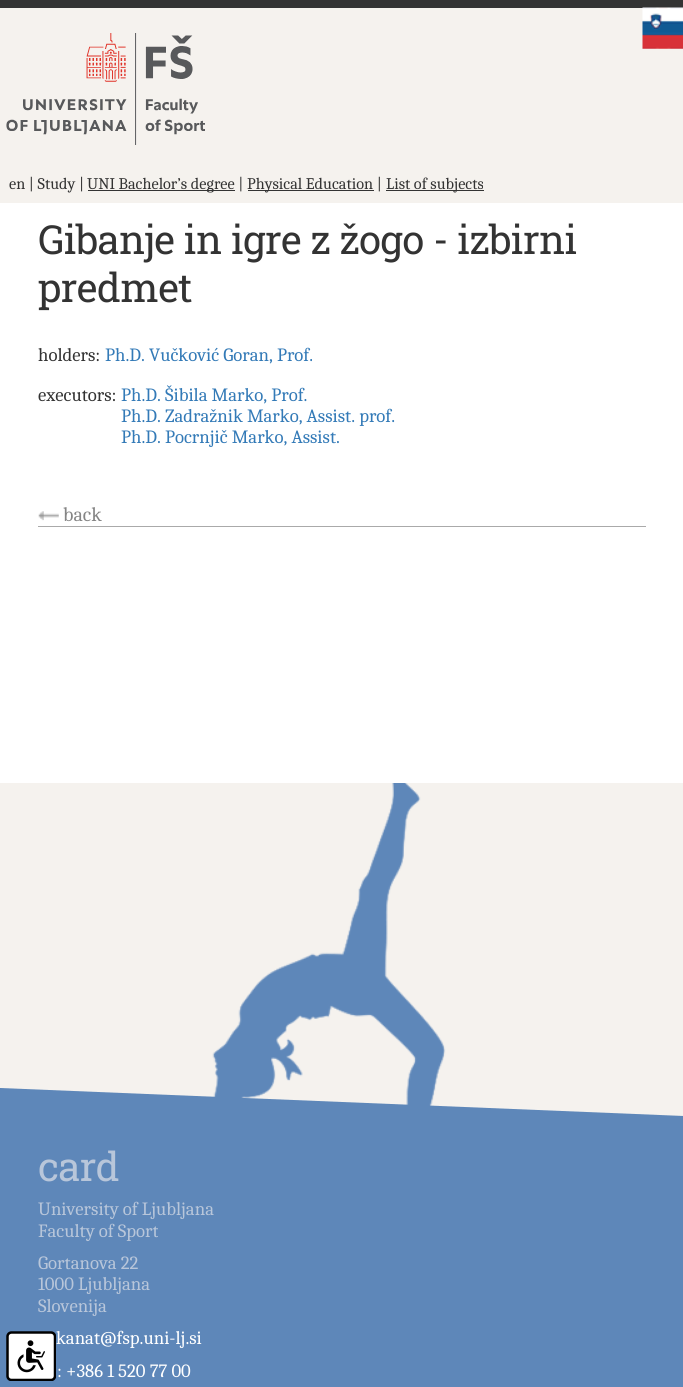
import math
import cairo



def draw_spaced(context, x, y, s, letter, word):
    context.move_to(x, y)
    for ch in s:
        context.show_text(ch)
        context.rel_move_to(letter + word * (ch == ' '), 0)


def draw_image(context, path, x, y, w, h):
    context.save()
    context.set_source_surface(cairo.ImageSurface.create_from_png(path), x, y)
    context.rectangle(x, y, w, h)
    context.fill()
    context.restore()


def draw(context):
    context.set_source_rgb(245 / 255, 242 / 255, 238 / 255)
    context.paint()
    context.set_source_rgb(51 / 255, 51 / 255, 51 / 255)
    context.rectangle(0, 0, 683, 8)
    context.fill()
    draw_image(context, "images/1.png", 642, 7, 41, 42)
    draw_image(context, "images/2.png", 6, 33, 199, 112)
    context.set_source_rgb(1, 1, 1)
    context.rectangle(0, 203, 683, 580)
    context.fill()
    context.set_source_rgb(51 / 255, 51 / 255, 51 / 255)
    context.rectangle(88, 190, 147, 1)
    context.fill()
    context.rectangle(248, 190, 126, 1)
    context.fill()
    context.rectangle(386, 190, 98, 1)
    context.fill()
    context.set_source_rgb(170 / 255, 170 / 255, 170 / 255)
    context.rectangle(38, 526, 608, 1)
    context.fill()
    draw_image(context, "images/3.png", 38, 511, 21, 10)
    context.set_source_rgb(94 / 255, 135 / 255, 185 / 255)
    context.rectangle(0, 1144, 683, 243)
    context.fill()
    draw_image(context, "images/4.png", 6, 1331, 50, 50)
    draw_image(context, "images/5.png", 212, 783, 234, 323)
    context.new_path()
    context.move_to(0, 1088)
    context.line_to(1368, 1144)
    context.line_to(0, 1144)
    context.close_path()
    context.fill()
    context.select_font_face("Caladea")
    context.set_font_size(16.25)
    context.set_source_rgb(51 / 255, 51 / 255, 51 / 255)
    context.move_to(9, 189)
    context.show_text("en | Study |")
    context.move_to(87, 189)
    context.show_text("UNI Bachelor’s degree |")
    context.move_to(247, 189)
    context.show_text("Physical Education |")
    context.move_to(386, 189)
    context.show_text("List of subjects")
    context.select_font_face("Roboto Slab")
    context.set_font_size(40)
    draw_spaced(context, 38, 254, "Gibanje in igre z žogo - izbirni", -0.6, 0)
    draw_spaced(context, 38, 302, "predmet", -0.6, 0)
    context.select_font_face("Caladea")
    context.set_font_size(18.75)
    context.move_to(38, 361)
    context.show_text("holders:")
    context.set_source_rgb(51 / 255, 122 / 255, 183 / 255)
    context.move_to(105, 361)
    context.show_text("Ph.D. Vučković Goran, Prof.")
    context.set_source_rgb(51 / 255, 51 / 255, 51 / 255)
    context.move_to(38, 401)
    context.show_text("executors:")
    context.set_source_rgb(51 / 255, 122 / 255, 183 / 255)
    context.move_to(121, 401)
    context.show_text("Ph.D. Šibila Marko, Prof.")
    context.move_to(121, 422)
    context.show_text("Ph.D. Zadražnik Marko, Assist. prof.")
    context.move_to(121, 443)
    context.show_text("Ph.D. Pocrnjič Marko, Assist.")
    context.set_font_size(20)
    context.set_source_rgb(133 / 255, 133 / 255, 133 / 255)
    context.move_to(63, 521)
    context.show_text("back")
    context.select_font_face("Roboto Slab")
    context.set_font_size(40)
    context.set_source_rgb(184 / 255, 198 / 255, 218 / 255)
    draw_spaced(context, 38, 1181, "card", -0.6, 0)
    context.select_font_face("Caladea")
    context.set_font_size(18.75)
    context.move_to(38, 1215)
    context.show_text("University of Ljubljana")
    context.move_to(38, 1237)
    context.show_text("Faculty of Sport")
    context.move_to(38, 1269)
    context.show_text("Gortanova 22")
    context.move_to(38, 1290)
    context.show_text("1000 Ljubljana")
    context.move_to(38, 1312)
    context.show_text("Slovenija")
    context.set_source_rgb(1, 1, 1)
    context.move_to(56, 1344)
    context.show_text("kanat@fsp.uni-lj.si")
    context.move_to(57, 1377)
    context.show_text(": +386 1 520 77 00")


surface = cairo.ImageSurface(cairo.Format.RGB24, 683, 1387)
context = cairo.Context(surface)
options = cairo.FontOptions()
options.set_hint_metrics(cairo.HintMetrics.OFF)
options.set_hint_style(cairo.HintStyle.NONE)
context.set_font_options(options)
context.set_miter_limit(4)
draw(context)
surface.write_to_png("out.png")
